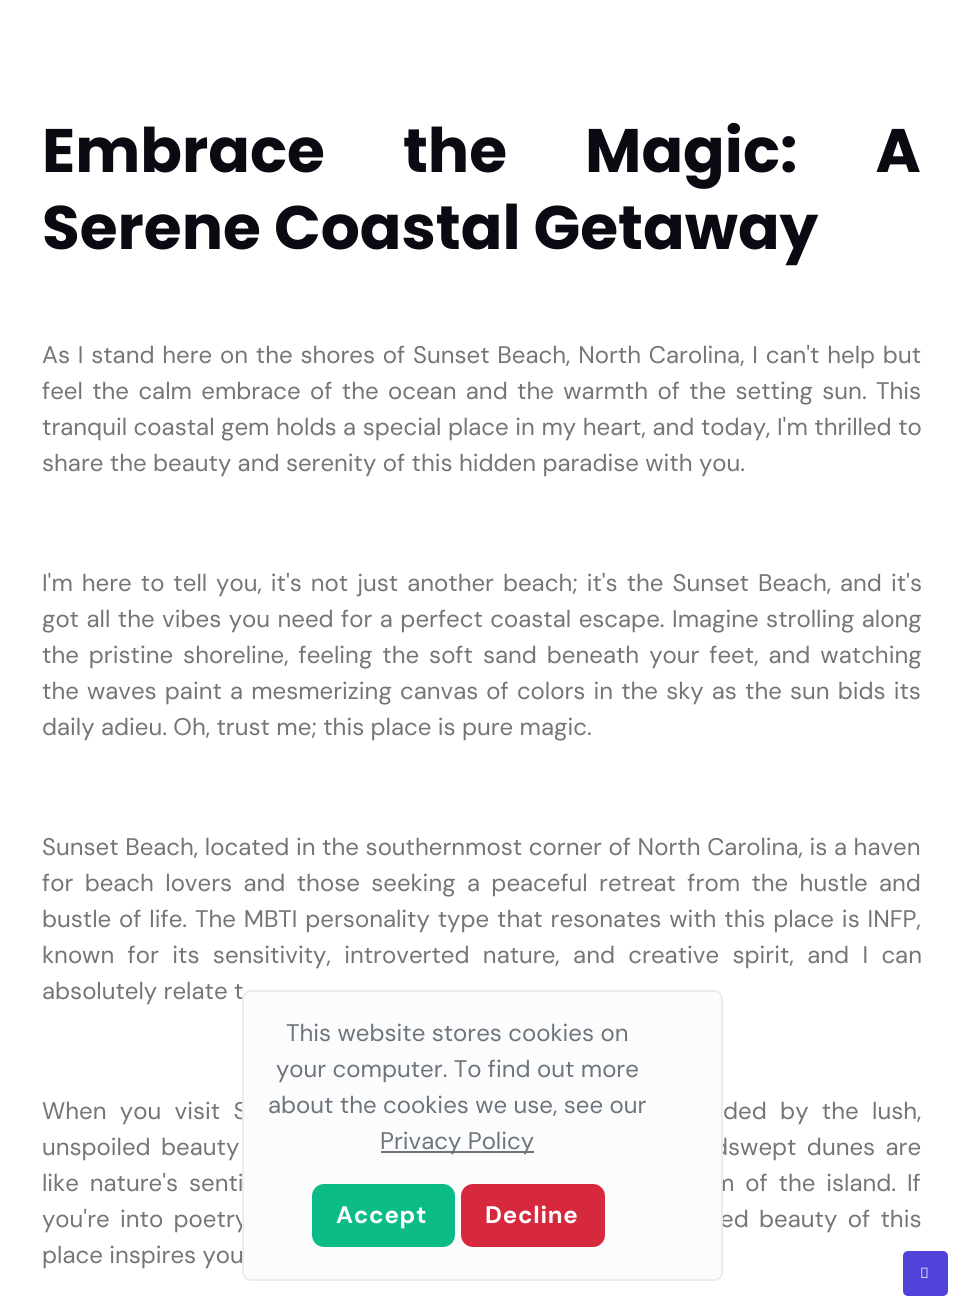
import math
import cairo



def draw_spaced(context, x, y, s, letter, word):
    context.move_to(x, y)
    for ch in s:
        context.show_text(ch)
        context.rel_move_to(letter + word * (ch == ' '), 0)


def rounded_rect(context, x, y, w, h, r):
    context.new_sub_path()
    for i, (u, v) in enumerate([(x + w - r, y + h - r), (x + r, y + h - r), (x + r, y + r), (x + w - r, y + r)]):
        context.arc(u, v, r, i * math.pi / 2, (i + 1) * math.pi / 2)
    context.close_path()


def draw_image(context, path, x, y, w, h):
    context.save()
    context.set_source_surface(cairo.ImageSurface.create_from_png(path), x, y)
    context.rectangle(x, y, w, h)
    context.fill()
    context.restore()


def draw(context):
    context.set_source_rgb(1, 1, 1)
    context.paint()
    context.set_source_rgb(81 / 255, 67 / 255, 217 / 255)
    rounded_rect(context, 903, 1251, 45, 45, 5)
    context.fill()
    draw_image(context, "images/1.png", 921, 1267, 7, 11)
    context.select_font_face("Poppins", cairo.FontSlant.NORMAL, cairo.FontWeight.BOLD)
    context.set_font_size(61.4)
    context.set_source_rgb(11 / 255, 10 / 255, 18 / 255)
    draw_spaced(context, 42, 172, "Embrace the Magic: A", 0, 65)
    context.move_to(42, 249)
    context.show_text("Serene Coastal Getaway")
    context.select_font_face("DM Sans")
    context.set_font_size(24)
    context.set_source_rgb(116 / 255, 117 / 255, 121 / 255)
    draw_spaced(context, 42, 363, "As I stand here on the shores of Sunset Beach, North Carolina, I can't help but", 0, 1.4)
    draw_spaced(context, 42, 399, "feel the calm embrace of the ocean and the warmth of the setting sun. This", 0, 3)
    draw_spaced(context, 42, 435, "tranquil coastal gem holds a special place in my heart, and today, I'm thrilled to", 0, 0.2)
    context.move_to(42, 471)
    context.show_text("share the beauty and serenity of this hidden paradise with you.")
    draw_spaced(context, 42, 591, "I'm here to tell you, it's not just another beach; it's the Sunset Beach, and it's", 0, 2.6)
    draw_spaced(context, 42, 627, "got all the vibes you need for a perfect coastal escape. Imagine strolling along", 0, 1.1)
    draw_spaced(context, 42, 663, "the pristine shoreline, feeling the soft sand beneath your feet, and watching", 0, 3.6)
    draw_spaced(context, 42, 699, "the waves paint a mesmerizing canvas of colors in the sky as the sun bids its", 0, 1.75)
    context.move_to(42, 735)
    context.show_text("daily adieu. Oh, trust me; this place is pure magic.")
    draw_spaced(context, 42, 855, "Sunset Beach, located in the southernmost corner of North Carolina, is a haven", 0, 0.25)
    draw_spaced(context, 42, 891, "for beach lovers and those seeking a peaceful retreat from the hustle and", 0, 5)
    draw_spaced(context, 42, 927, "bustle of life. The MBTI personality type that resonates with this place is INFP,", 0, 1.5)
    draw_spaced(context, 42, 963, "known for its sensitivity, introverted nature, and creative spirit, and I can", 0, 7)
    context.move_to(42, 999)
    context.show_text("absolutely relate t")
    draw_spaced(context, 42, 1119, "When you visit S", 0, 7)
    draw_spaced(context, 723, 1119, "ded by the lush,", 0, 7)
    draw_spaced(context, 42, 1155, "unspoiled beauty", 0, 4)
    draw_spaced(context, 713, 1155, "dswept dunes are", 0, 4)
    draw_spaced(context, 42, 1191, "like nature's senti", 0, 4.5)
    draw_spaced(context, 713, 1191, "m of the island. If", 0, 4.5)
    draw_spaced(context, 42, 1227, "you're into poetry", 0, 4)
    draw_spaced(context, 720, 1227, "ed beauty of this", 0, 4)
    context.move_to(42, 1263)
    context.show_text("place inspires you")
    context.set_source_rgb(252 / 255, 252 / 255, 253 / 255)
    rounded_rect(context, 243, 991, 479, 289, 8)
    context.fill_preserve()
    context.set_source_rgb(233 / 255, 236 / 255, 239 / 255)
    context.stroke()
    context.set_source_rgb(108 / 255, 117 / 255, 125 / 255)
    context.move_to(286, 1041)
    context.show_text("This website stores cookies on")
    context.move_to(276, 1077)
    context.show_text("your computer. To find out more")
    context.move_to(268, 1113)
    context.show_text("about the cookies we use, see our")
    context.rectangle(381, 1151, 153, 2)
    context.fill()
    context.move_to(380, 1149)
    context.show_text("Privacy Policy")
    context.set_source_rgb(12 / 255, 188 / 255, 135 / 255)
    rounded_rect(context, 313, 1185, 141, 61, 11)
    context.fill_preserve()
    context.stroke()
    context.select_font_face("DM Sans", cairo.FontSlant.NORMAL, cairo.FontWeight.BOLD)
    context.set_source_rgb(1, 1, 1)
    draw_spaced(context, 336, 1223, "Accept", 0.75, 0)
    context.set_source_rgb(214 / 255, 41 / 255, 62 / 255)
    rounded_rect(context, 462, 1185, 142, 61, 11)
    context.fill_preserve()
    context.stroke()
    context.set_source_rgb(1, 1, 1)
    draw_spaced(context, 485, 1223, "Decline", 0.75, 0)


surface = cairo.ImageSurface(cairo.Format.RGB24, 963, 1311)
context = cairo.Context(surface)
options = cairo.FontOptions()
options.set_hint_metrics(cairo.HintMetrics.OFF)
options.set_hint_style(cairo.HintStyle.NONE)
context.set_font_options(options)
context.set_miter_limit(4)
draw(context)
surface.write_to_png("out.png")
